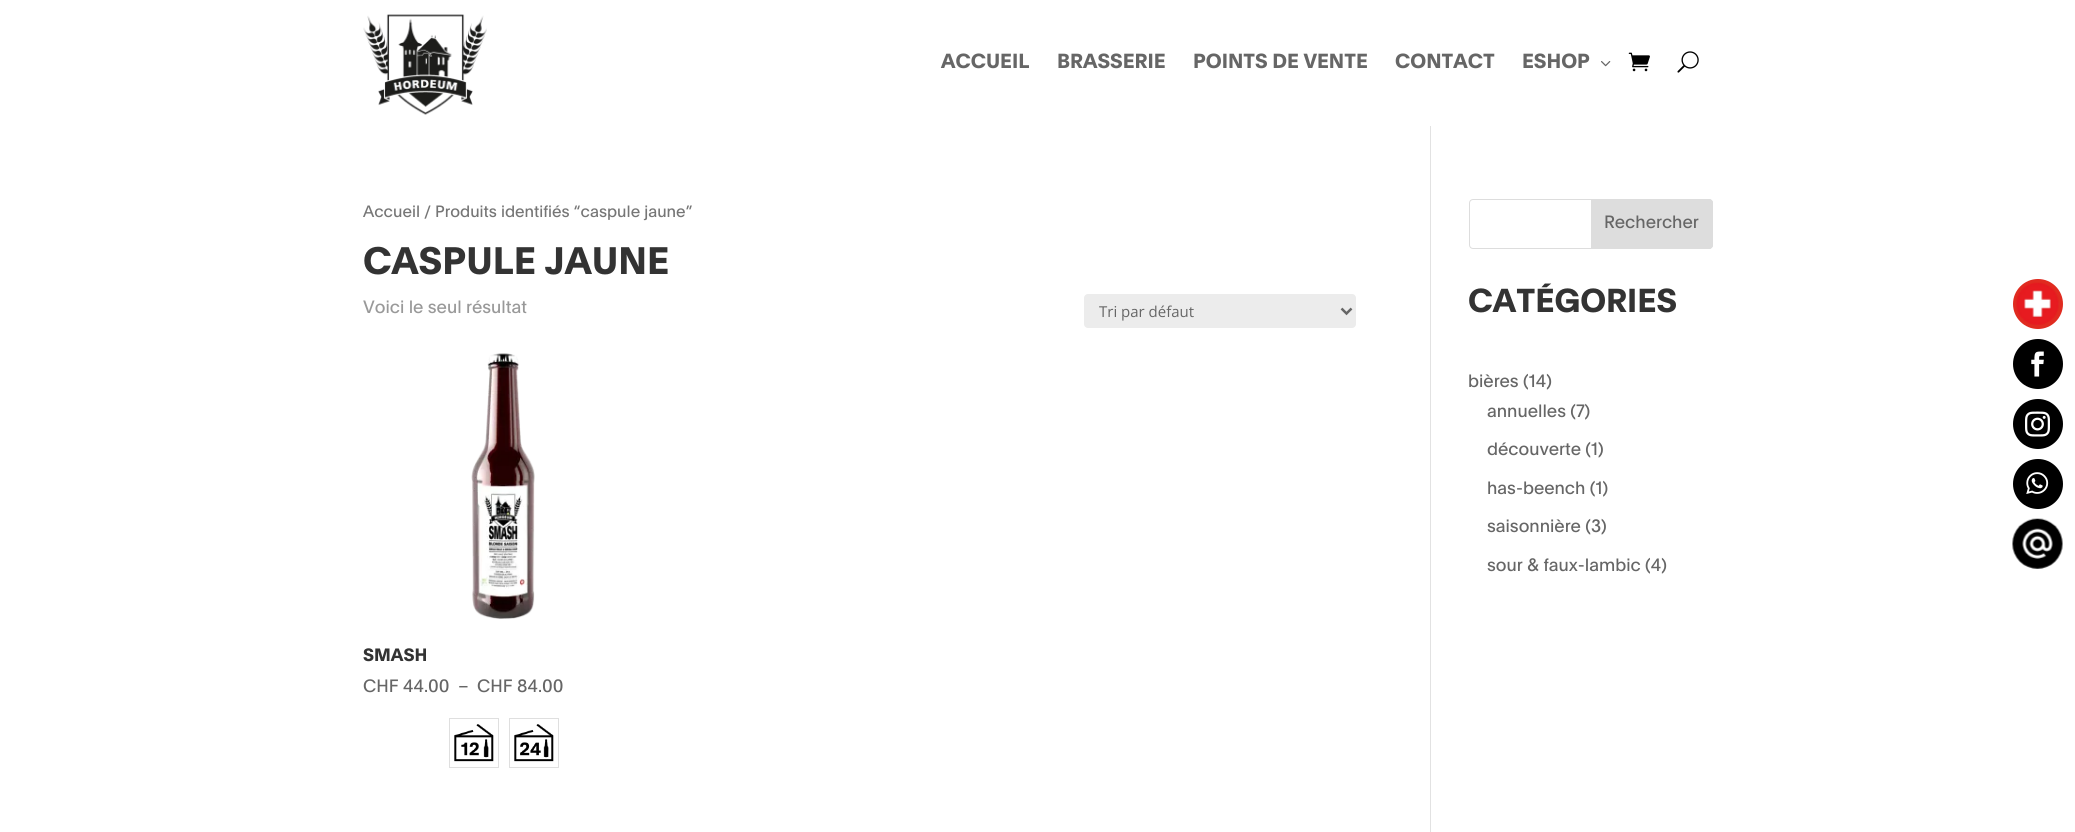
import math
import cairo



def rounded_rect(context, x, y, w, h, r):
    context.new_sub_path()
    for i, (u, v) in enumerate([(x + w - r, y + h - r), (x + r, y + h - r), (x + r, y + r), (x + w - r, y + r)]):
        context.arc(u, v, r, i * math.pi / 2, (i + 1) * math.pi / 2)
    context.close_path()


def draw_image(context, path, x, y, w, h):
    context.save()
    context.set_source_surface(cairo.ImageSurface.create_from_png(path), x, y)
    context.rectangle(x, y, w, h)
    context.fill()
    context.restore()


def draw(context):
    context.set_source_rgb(1, 1, 1)
    context.paint()
    draw_image(context, "images/1.png", 363, 14, 124, 101)
    draw_image(context, "images/2.png", 1601, 61, 10, 6)
    draw_image(context, "images/3.png", 1628, 52, 22, 20)
    draw_image(context, "images/4.png", 1677, 51, 22, 22)
    context.set_source_rgb(224 / 255, 43 / 255, 32 / 255)
    context.arc(2038, 304, 25, 0, 2 * math.pi)
    context.fill()
    draw_image(context, "images/5.png", 2016, 282, 43, 43)
    context.set_source_rgb(0, 0, 0)
    context.arc(2038, 364, 25, 0, 2 * math.pi)
    context.fill()
    draw_image(context, "images/6.png", 2031, 351, 13, 26)
    context.arc(2038, 424, 25, 0, 2 * math.pi)
    context.fill()
    draw_image(context, "images/7.png", 2025, 411, 25, 26)
    context.arc(2038, 484, 25, 0, 2 * math.pi)
    context.fill()
    draw_image(context, "images/8.png", 2026, 472, 23, 22)
    draw_image(context, "images/9.png", 2012, 518, 51, 51)
    context.set_source_rgb(226 / 255, 226 / 255, 226 / 255)
    context.rectangle(1430, 126, 1, 706)
    context.fill()
    context.set_source_rgb(236 / 255, 236 / 255, 236 / 255)
    rounded_rect(context, 1084, 294, 272, 34, 4)
    context.fill()
    context.new_path()
    context.move_to(1341.5, 308.5)
    context.line_to(1346.5, 313.5)
    context.line_to(1351.5, 308.5)
    context.set_source_rgb(102 / 255, 102 / 255, 102 / 255)
    context.set_line_width(2.5)
    context.stroke()
    draw_image(context, "images/10.png", 471, 353, 64, 266)
    context.rectangle(449.5, 718.5, 49, 49)
    context.set_source_rgb(223 / 255, 223 / 255, 223 / 255)
    context.set_line_width(1)
    context.stroke()
    draw_image(context, "images/11.png", 454, 724, 40, 38)
    context.rectangle(509.5, 718.5, 49, 49)
    context.stroke()
    draw_image(context, "images/12.png", 514, 724, 40, 38)
    rounded_rect(context, 1469.5, 199.5, 243, 49, 3.5)
    context.set_source_rgb(221 / 255, 221 / 255, 221 / 255)
    context.stroke()
    context.new_path()
    context.move_to(1591.5, 199.5)
    context.line_to(1709, 199.5)
    context.curve_to(1711, 199.5, 1712.5, 201, 1712.5, 203)
    context.line_to(1712.5, 245)
    context.curve_to(1712.5, 247, 1711, 248.5, 1709, 248.5)
    context.line_to(1591.5, 248.5)
    context.close_path()
    context.fill_preserve()
    context.stroke()
    context.select_font_face("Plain", cairo.FontSlant.NORMAL, cairo.FontWeight.BOLD)
    context.set_font_size(20)
    context.set_source_rgb(102 / 255, 102 / 255, 102 / 255)
    context.move_to(941, 68)
    context.show_text("ACCUEIL")
    context.move_to(1057, 68)
    context.show_text("BRASSERIE")
    context.move_to(1193, 68)
    context.show_text("POINTS DE VENTE")
    context.move_to(1395, 68)
    context.show_text("CONTACT")
    context.move_to(1522, 68)
    context.show_text("ESHOP")
    context.select_font_face("Plain")
    context.set_font_size(16.1)
    context.set_source_rgb(118 / 255, 118 / 255, 118 / 255)
    context.move_to(363, 217)
    context.show_text("Accueil / Produits identifiés “caspule jaune”")
    context.select_font_face("Plain", cairo.FontSlant.NORMAL, cairo.FontWeight.BOLD)
    context.set_font_size(37.5)
    context.set_source_rgb(51 / 255, 51 / 255, 51 / 255)
    context.move_to(363, 274)
    context.show_text("CASPULE JAUNE")
    context.select_font_face("Plain")
    context.set_font_size(17.5)
    context.set_source_rgb(153 / 255, 153 / 255, 153 / 255)
    context.move_to(363, 313)
    context.show_text("Voici le seul résultat")
    context.select_font_face("Open Sans")
    context.set_font_size(15)
    context.set_source_rgb(102 / 255, 102 / 255, 102 / 255)
    context.move_to(1099, 317)
    context.show_text("Tri par défaut")
    context.select_font_face("Plain", cairo.FontSlant.NORMAL, cairo.FontWeight.BOLD)
    context.set_font_size(17.5)
    context.set_source_rgb(51 / 255, 51 / 255, 51 / 255)
    context.move_to(363, 661)
    context.show_text("SMASH")
    context.select_font_face("Plain")
    context.set_source_rgb(102 / 255, 102 / 255, 102 / 255)
    context.move_to(363, 692)
    context.show_text("CHF 44.00")
    context.move_to(458, 692)
    context.show_text("–")
    context.move_to(477, 692)
    context.show_text("CHF 84.00")
    context.move_to(1604, 228)
    context.show_text("Rechercher")
    context.select_font_face("Plain", cairo.FontSlant.NORMAL, cairo.FontWeight.BOLD)
    context.set_font_size(32.5)
    context.set_source_rgb(51 / 255, 51 / 255, 51 / 255)
    context.move_to(1468, 312)
    context.show_text("CATÉGORIES")
    context.select_font_face("Plain")
    context.set_font_size(17.5)
    context.set_source_rgb(102 / 255, 102 / 255, 102 / 255)
    context.move_to(1468, 387)
    context.show_text("bières (14)")
    context.move_to(1487, 417)
    context.show_text("annuelles (7)")
    context.move_to(1487, 455)
    context.show_text("découverte (1)")
    context.move_to(1487, 494)
    context.show_text("has-beench (1)")
    context.move_to(1487, 532)
    context.show_text("saisonnière (3)")
    context.move_to(1487, 571)
    context.show_text("sour & faux-lambic (4)")


surface = cairo.ImageSurface(cairo.Format.RGB24, 2075, 832)
context = cairo.Context(surface)
options = cairo.FontOptions()
options.set_hint_metrics(cairo.HintMetrics.OFF)
options.set_hint_style(cairo.HintStyle.NONE)
context.set_font_options(options)
context.set_miter_limit(4)
draw(context)
surface.write_to_png("out.png")
